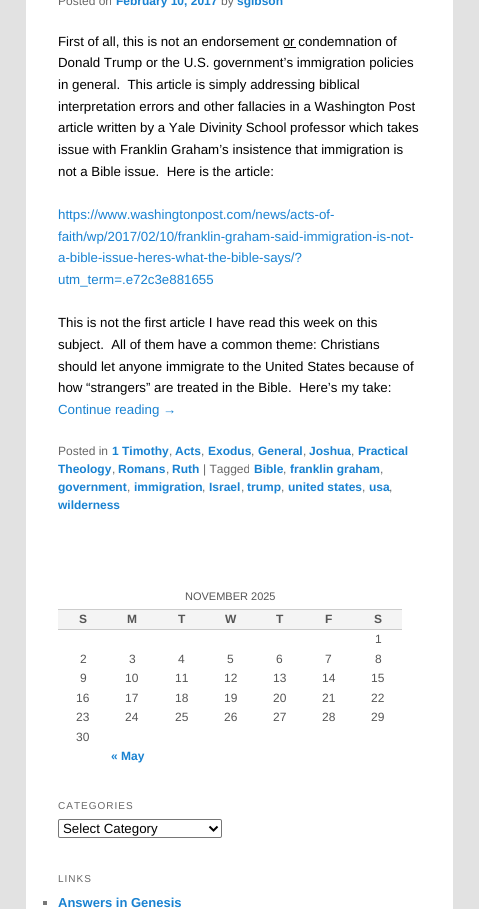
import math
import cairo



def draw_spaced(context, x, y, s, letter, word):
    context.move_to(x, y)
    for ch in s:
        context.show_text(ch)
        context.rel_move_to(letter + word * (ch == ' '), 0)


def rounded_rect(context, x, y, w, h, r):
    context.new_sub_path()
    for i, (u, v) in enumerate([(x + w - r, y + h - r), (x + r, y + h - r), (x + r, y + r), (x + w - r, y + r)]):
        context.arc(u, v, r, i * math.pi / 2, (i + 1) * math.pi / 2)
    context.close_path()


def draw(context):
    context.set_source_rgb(226 / 255, 226 / 255, 226 / 255)
    context.paint()
    context.set_source_rgb(1, 1, 1)
    context.rectangle(26, 0, 427, 909)
    context.fill()
    context.set_source_rgb(0, 0, 0)
    context.rectangle(284, 47, 12, 1)
    context.fill()
    context.set_source_rgb(244 / 255, 244 / 255, 244 / 255)
    context.rectangle(58, 610, 344, 19)
    context.fill()
    context.set_source_rgb(204 / 255, 204 / 255, 204 / 255)
    context.rectangle(58, 609, 344, 1)
    context.fill()
    context.rectangle(58, 629, 344, 1)
    context.fill()
    rounded_rect(context, 58.5, 819.5, 163, 18, 1.5)
    context.set_source_rgb(118 / 255, 118 / 255, 118 / 255)
    context.set_line_width(1)
    context.stroke()
    context.new_path()
    context.move_to(209.5, 826.5)
    context.line_to(213.5, 830.5)
    context.line_to(217.5, 826.5)
    context.set_source_rgb(0, 0, 0)
    context.set_line_width(2)
    context.stroke()
    context.set_source_rgb(119 / 255, 119 / 255, 119 / 255)
    context.rectangle(43, 901, 4, 4)
    context.fill()
    context.select_font_face("Liberation Sans")
    context.set_font_size(12)
    context.set_source_rgb(102 / 255, 102 / 255, 102 / 255)
    context.move_to(58, 5)
    context.show_text("Posted on")
    context.select_font_face("Liberation Sans", cairo.FontSlant.NORMAL, cairo.FontWeight.BOLD)
    context.set_source_rgb(25 / 255, 130 / 255, 209 / 255)
    context.move_to(116, 5)
    context.show_text("February 10, 2017")
    context.select_font_face("Liberation Sans")
    context.set_source_rgb(102 / 255, 102 / 255, 102 / 255)
    context.move_to(221, 5)
    context.show_text("by")
    context.select_font_face("Liberation Sans", cairo.FontSlant.NORMAL, cairo.FontWeight.BOLD)
    context.set_source_rgb(25 / 255, 130 / 255, 209 / 255)
    context.move_to(237, 5)
    context.show_text("sgibson")
    context.select_font_face("Liberation Sans")
    context.set_font_size(13.3)
    context.set_source_rgb(0, 0, 0)
    context.move_to(58, 46)
    context.show_text("First of all, this is not an endorsement or condemnation of")
    context.move_to(58, 67)
    context.show_text("Donald Trump or the U.S. government’s immigration policies")
    context.move_to(58, 89)
    context.show_text("in general.  This article is simply addressing biblical")
    context.move_to(58, 111)
    context.show_text("interpretation errors and other fallacies in a Washington Post")
    context.move_to(58, 132)
    context.show_text("article written by a Yale Divinity School professor which takes")
    context.move_to(58, 154)
    context.show_text("issue with Franklin Graham’s insistence that immigration is")
    context.move_to(58, 176)
    context.show_text("not a Bible issue.  Here is the article:")
    context.set_source_rgb(25 / 255, 130 / 255, 209 / 255)
    context.move_to(58, 219)
    context.show_text("https://www.washingtonpost.com/news/acts-of-")
    context.move_to(58, 241)
    context.show_text("faith/wp/2017/02/10/franklin-graham-said-immigration-is-not-")
    context.move_to(58, 262)
    context.show_text("a-bible-issue-heres-what-the-bible-says/?")
    context.move_to(58, 284)
    context.show_text("utm_term=.e72c3e881655")
    context.set_source_rgb(0, 0, 0)
    context.move_to(58, 327)
    context.show_text("This is not the first article I have read this week on this")
    context.move_to(58, 349)
    context.show_text("subject.  All of them have a common theme: Christians")
    context.move_to(58, 371)
    context.show_text("should let anyone immigrate to the United States because of")
    context.move_to(58, 392)
    context.show_text("how “strangers” are treated in the Bible.  Here’s my take:")
    context.set_source_rgb(25 / 255, 130 / 255, 209 / 255)
    context.move_to(58, 414)
    context.show_text("Continue reading →")
    context.set_font_size(12)
    context.set_source_rgb(102 / 255, 102 / 255, 102 / 255)
    context.move_to(58, 455)
    context.show_text("Posted in")
    context.select_font_face("Liberation Sans", cairo.FontSlant.NORMAL, cairo.FontWeight.BOLD)
    context.set_source_rgb(25 / 255, 130 / 255, 209 / 255)
    context.move_to(112, 455)
    context.show_text("1 Timothy")
    context.select_font_face("Liberation Sans")
    context.set_source_rgb(102 / 255, 102 / 255, 102 / 255)
    context.move_to(169, 455)
    context.show_text(",")
    context.select_font_face("Liberation Sans", cairo.FontSlant.NORMAL, cairo.FontWeight.BOLD)
    context.set_source_rgb(25 / 255, 130 / 255, 209 / 255)
    context.move_to(175, 455)
    context.show_text("Acts")
    context.select_font_face("Liberation Sans")
    context.set_source_rgb(102 / 255, 102 / 255, 102 / 255)
    context.move_to(201, 455)
    context.show_text(",")
    context.select_font_face("Liberation Sans", cairo.FontSlant.NORMAL, cairo.FontWeight.BOLD)
    context.set_source_rgb(25 / 255, 130 / 255, 209 / 255)
    context.move_to(208, 455)
    context.show_text("Exodus")
    context.select_font_face("Liberation Sans")
    context.set_source_rgb(102 / 255, 102 / 255, 102 / 255)
    context.move_to(251, 455)
    context.show_text(",")
    context.select_font_face("Liberation Sans", cairo.FontSlant.NORMAL, cairo.FontWeight.BOLD)
    context.set_source_rgb(25 / 255, 130 / 255, 209 / 255)
    context.move_to(258, 455)
    context.show_text("General")
    context.select_font_face("Liberation Sans")
    context.set_source_rgb(102 / 255, 102 / 255, 102 / 255)
    context.move_to(303, 455)
    context.show_text(",")
    context.select_font_face("Liberation Sans", cairo.FontSlant.NORMAL, cairo.FontWeight.BOLD)
    context.set_source_rgb(25 / 255, 130 / 255, 209 / 255)
    context.move_to(309, 455)
    context.show_text("Joshua")
    context.select_font_face("Liberation Sans")
    context.set_source_rgb(102 / 255, 102 / 255, 102 / 255)
    context.move_to(351, 455)
    context.show_text(",")
    context.select_font_face("Liberation Sans", cairo.FontSlant.NORMAL, cairo.FontWeight.BOLD)
    context.set_source_rgb(25 / 255, 130 / 255, 209 / 255)
    context.move_to(358, 455)
    context.show_text("Practical")
    context.move_to(58, 473)
    context.show_text("Theology")
    context.select_font_face("Liberation Sans")
    context.set_source_rgb(102 / 255, 102 / 255, 102 / 255)
    context.move_to(112, 473)
    context.show_text(",")
    context.select_font_face("Liberation Sans", cairo.FontSlant.NORMAL, cairo.FontWeight.BOLD)
    context.set_source_rgb(25 / 255, 130 / 255, 209 / 255)
    context.move_to(118, 473)
    context.show_text("Romans")
    context.select_font_face("Liberation Sans")
    context.set_source_rgb(102 / 255, 102 / 255, 102 / 255)
    context.move_to(166, 473)
    context.show_text(",")
    context.select_font_face("Liberation Sans", cairo.FontSlant.NORMAL, cairo.FontWeight.BOLD)
    context.set_source_rgb(25 / 255, 130 / 255, 209 / 255)
    context.move_to(172, 473)
    context.show_text("Ruth")
    context.select_font_face("Liberation Sans")
    context.set_source_rgb(102 / 255, 102 / 255, 102 / 255)
    context.move_to(203, 473)
    context.show_text("| Tagged")
    context.select_font_face("Liberation Sans", cairo.FontSlant.NORMAL, cairo.FontWeight.BOLD)
    context.set_source_rgb(25 / 255, 130 / 255, 209 / 255)
    context.move_to(254, 473)
    context.show_text("Bible")
    context.select_font_face("Liberation Sans")
    context.set_source_rgb(102 / 255, 102 / 255, 102 / 255)
    context.move_to(283, 473)
    context.show_text(",")
    context.select_font_face("Liberation Sans", cairo.FontSlant.NORMAL, cairo.FontWeight.BOLD)
    context.set_source_rgb(25 / 255, 130 / 255, 209 / 255)
    context.move_to(290, 473)
    context.show_text("franklin graham")
    context.select_font_face("Liberation Sans")
    context.set_source_rgb(102 / 255, 102 / 255, 102 / 255)
    context.move_to(380, 473)
    context.show_text(",")
    context.select_font_face("Liberation Sans", cairo.FontSlant.NORMAL, cairo.FontWeight.BOLD)
    context.set_source_rgb(25 / 255, 130 / 255, 209 / 255)
    context.move_to(58, 491)
    context.show_text("government")
    context.select_font_face("Liberation Sans")
    context.set_source_rgb(102 / 255, 102 / 255, 102 / 255)
    context.move_to(127, 491)
    context.show_text(",")
    context.select_font_face("Liberation Sans", cairo.FontSlant.NORMAL, cairo.FontWeight.BOLD)
    context.set_source_rgb(25 / 255, 130 / 255, 209 / 255)
    context.move_to(134, 491)
    context.show_text("immigration")
    context.select_font_face("Liberation Sans")
    context.set_source_rgb(102 / 255, 102 / 255, 102 / 255)
    context.move_to(202, 491)
    context.show_text(",")
    context.select_font_face("Liberation Sans", cairo.FontSlant.NORMAL, cairo.FontWeight.BOLD)
    context.set_source_rgb(25 / 255, 130 / 255, 209 / 255)
    context.move_to(209, 491)
    context.show_text("Israel")
    context.select_font_face("Liberation Sans")
    context.set_source_rgb(102 / 255, 102 / 255, 102 / 255)
    context.move_to(241, 491)
    context.show_text(",")
    context.select_font_face("Liberation Sans", cairo.FontSlant.NORMAL, cairo.FontWeight.BOLD)
    context.set_source_rgb(25 / 255, 130 / 255, 209 / 255)
    context.move_to(247, 491)
    context.show_text("trump")
    context.select_font_face("Liberation Sans")
    context.set_source_rgb(102 / 255, 102 / 255, 102 / 255)
    context.move_to(281, 491)
    context.show_text(",")
    context.select_font_face("Liberation Sans", cairo.FontSlant.NORMAL, cairo.FontWeight.BOLD)
    context.set_source_rgb(25 / 255, 130 / 255, 209 / 255)
    context.move_to(288, 491)
    context.show_text("united states")
    context.select_font_face("Liberation Sans")
    context.set_source_rgb(102 / 255, 102 / 255, 102 / 255)
    context.move_to(362, 491)
    context.show_text(",")
    context.select_font_face("Liberation Sans", cairo.FontSlant.NORMAL, cairo.FontWeight.BOLD)
    context.set_source_rgb(25 / 255, 130 / 255, 209 / 255)
    context.move_to(369, 491)
    context.show_text("usa")
    context.select_font_face("Liberation Sans")
    context.set_source_rgb(102 / 255, 102 / 255, 102 / 255)
    context.move_to(389, 491)
    context.show_text(",")
    context.select_font_face("Liberation Sans", cairo.FontSlant.NORMAL, cairo.FontWeight.BOLD)
    context.set_source_rgb(25 / 255, 130 / 255, 209 / 255)
    context.move_to(58, 509)
    context.show_text("wilderness")
    context.select_font_face("Liberation Sans")
    context.set_font_size(11)
    context.set_source_rgb(85 / 255, 85 / 255, 85 / 255)
    context.move_to(185, 600)
    context.show_text("NOVEMBER 2025")
    context.select_font_face("Liberation Sans", cairo.FontSlant.NORMAL, cairo.FontWeight.BOLD)
    context.set_font_size(12)
    context.move_to(79, 623)
    context.show_text("S")
    context.move_to(127, 623)
    context.show_text("M")
    context.move_to(178, 623)
    context.show_text("T")
    context.move_to(225, 623)
    context.show_text("W")
    context.move_to(276, 623)
    context.show_text("T")
    context.move_to(325, 623)
    context.show_text("F")
    context.move_to(374, 623)
    context.show_text("S")
    context.select_font_face("Liberation Sans")
    context.move_to(375, 643)
    context.show_text("1")
    context.move_to(80, 663)
    context.show_text("2")
    context.move_to(129, 663)
    context.show_text("3")
    context.move_to(178, 663)
    context.show_text("4")
    context.move_to(227, 663)
    context.show_text("5")
    context.move_to(276, 663)
    context.show_text("6")
    context.move_to(325, 663)
    context.show_text("7")
    context.move_to(375, 663)
    context.show_text("8")
    context.move_to(80, 682)
    context.show_text("9")
    context.move_to(125, 682)
    context.show_text("10")
    context.move_to(175, 682)
    context.show_text("11")
    context.move_to(224, 682)
    context.show_text("12")
    context.move_to(273, 682)
    context.show_text("13")
    context.move_to(322, 682)
    context.show_text("14")
    context.move_to(371, 682)
    context.show_text("15")
    context.move_to(76, 702)
    context.show_text("16")
    context.move_to(125, 702)
    context.show_text("17")
    context.move_to(175, 702)
    context.show_text("18")
    context.move_to(224, 702)
    context.show_text("19")
    context.move_to(273, 702)
    context.show_text("20")
    context.move_to(322, 702)
    context.show_text("21")
    context.move_to(371, 702)
    context.show_text("22")
    context.move_to(76, 721)
    context.show_text("23")
    context.move_to(125, 721)
    context.show_text("24")
    context.move_to(175, 721)
    context.show_text("25")
    context.move_to(224, 721)
    context.show_text("26")
    context.move_to(273, 721)
    context.show_text("27")
    context.move_to(322, 721)
    context.show_text("28")
    context.move_to(371, 721)
    context.show_text("29")
    context.move_to(76, 741)
    context.show_text("30")
    context.select_font_face("Liberation Sans", cairo.FontSlant.NORMAL, cairo.FontWeight.BOLD)
    context.set_source_rgb(25 / 255, 130 / 255, 209 / 255)
    context.move_to(111, 760)
    context.show_text("« May")
    context.select_font_face("Liberation Sans")
    context.set_font_size(10)
    context.set_source_rgb(102 / 255, 102 / 255, 102 / 255)
    draw_spaced(context, 58, 809, "CATEGORIES", 1, 0)
    context.set_font_size(13.3)
    context.set_source_rgb(0, 0, 0)
    context.move_to(63, 833)
    context.show_text("Select Category")
    context.set_font_size(10)
    context.set_source_rgb(102 / 255, 102 / 255, 102 / 255)
    draw_spaced(context, 58, 882, "LINKS", 1, 0)
    context.select_font_face("Liberation Sans", cairo.FontSlant.NORMAL, cairo.FontWeight.BOLD)
    context.set_font_size(13)
    context.set_source_rgb(25 / 255, 130 / 255, 209 / 255)
    context.move_to(58, 907)
    context.show_text("Answers in Genesis")


surface = cairo.ImageSurface(cairo.Format.RGB24, 479, 909)
context = cairo.Context(surface)
options = cairo.FontOptions()
options.set_hint_metrics(cairo.HintMetrics.OFF)
options.set_hint_style(cairo.HintStyle.NONE)
context.set_font_options(options)
context.set_miter_limit(4)
draw(context)
surface.write_to_png("out.png")
